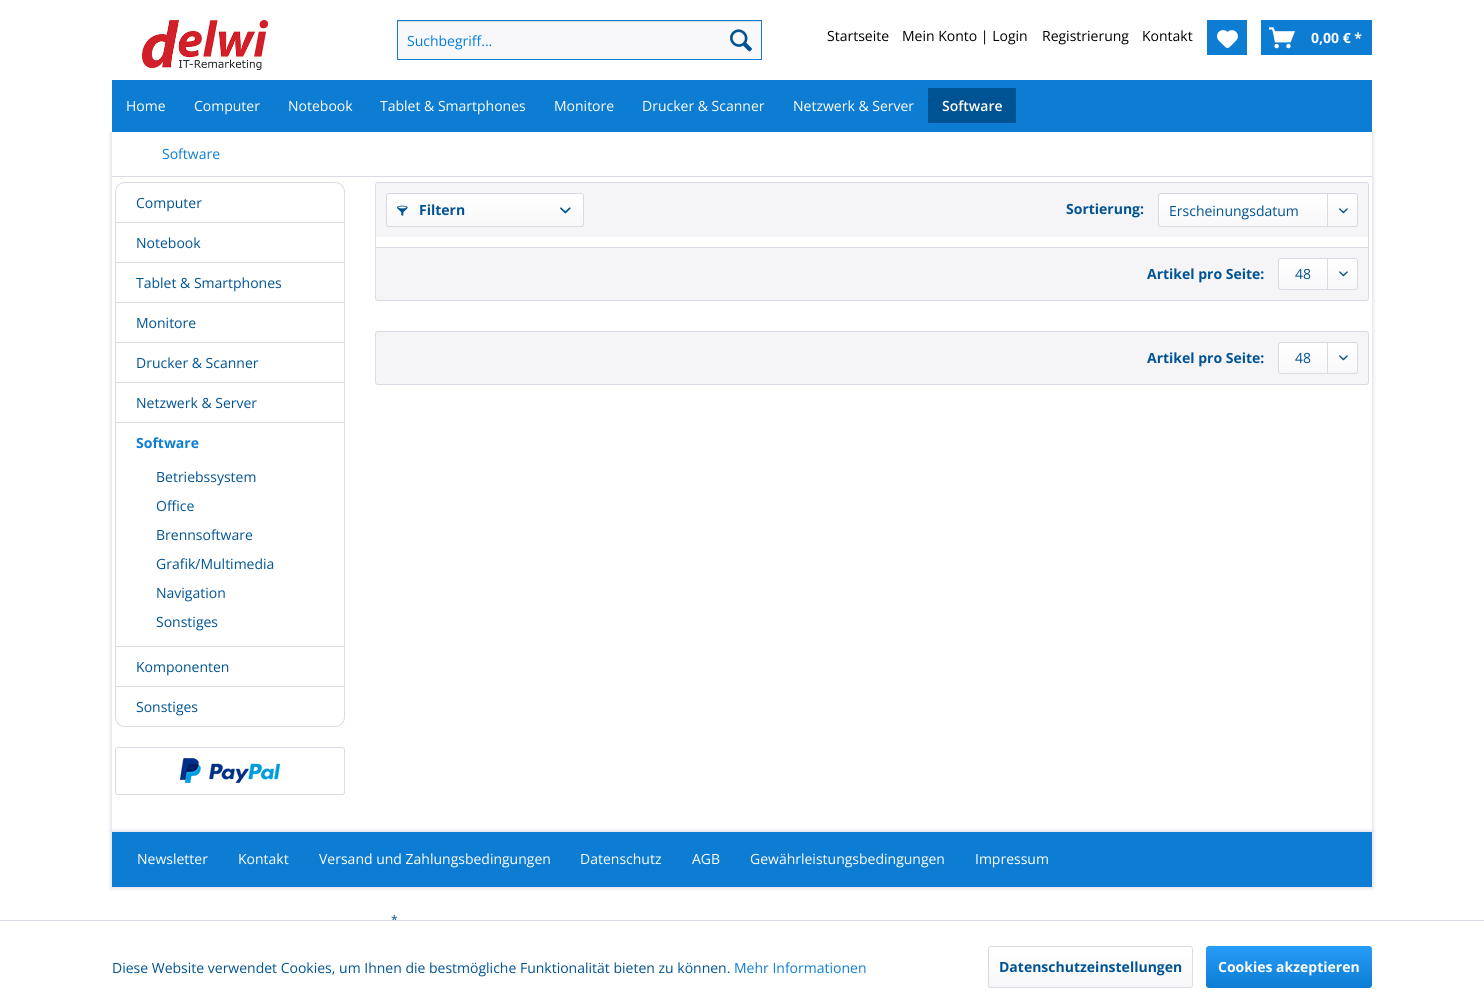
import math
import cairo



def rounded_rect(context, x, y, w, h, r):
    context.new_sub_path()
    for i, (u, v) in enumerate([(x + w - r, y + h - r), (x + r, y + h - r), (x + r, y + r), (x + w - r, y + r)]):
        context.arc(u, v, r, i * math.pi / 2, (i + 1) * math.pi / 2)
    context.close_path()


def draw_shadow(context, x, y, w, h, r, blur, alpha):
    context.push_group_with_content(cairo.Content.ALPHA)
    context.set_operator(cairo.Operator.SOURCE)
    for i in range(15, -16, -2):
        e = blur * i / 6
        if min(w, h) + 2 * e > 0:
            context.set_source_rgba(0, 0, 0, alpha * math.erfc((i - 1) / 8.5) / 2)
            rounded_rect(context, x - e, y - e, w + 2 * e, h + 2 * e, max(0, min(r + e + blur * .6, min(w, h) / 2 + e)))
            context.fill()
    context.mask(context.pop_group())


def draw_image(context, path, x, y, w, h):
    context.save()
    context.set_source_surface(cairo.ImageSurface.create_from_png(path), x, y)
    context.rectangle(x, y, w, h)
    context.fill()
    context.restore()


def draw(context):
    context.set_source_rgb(1, 1, 1)
    context.paint()
    draw_image(context, "images/1.png", 142, 20, 126, 50)
    context.set_source_rgb(248 / 255, 248 / 255, 250 / 255)
    context.rectangle(398, 22, 363, 37)
    context.fill()
    context.set_source_rgb(218 / 255, 218 / 255, 229 / 255)
    context.rectangle(398, 21, 363, 1)
    context.fill()
    context.rectangle(397.5, 20.5, 364, 39)
    context.set_source_rgb(13 / 255, 125 / 255, 211 / 255)
    context.set_line_width(1)
    context.stroke()
    draw_image(context, "images/2.png", 730, 29, 22, 23)
    context.rectangle(1207, 20, 40, 35)
    context.fill()
    draw_image(context, "images/3.png", 1217, 30, 21, 19)
    context.rectangle(1261, 20, 111, 35)
    context.fill()
    draw_image(context, "images/4.png", 1269, 27, 26, 22)
    context.save()
    context.set_fill_rule(cairo.FillRule.EVEN_ODD)
    context.new_path()
    context.move_to(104, 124)
    context.line_to(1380, 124)
    context.line_to(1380, 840)
    context.line_to(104, 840)
    context.close_path()
    context.move_to(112, 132)
    context.line_to(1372, 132)
    context.line_to(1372, 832)
    context.line_to(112, 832)
    context.close_path()
    context.clip()
    context.set_source_rgb(218 / 255, 218 / 255, 229 / 255)
    draw_shadow(context, 111, 131, 1262, 702, 0, 2, 1)
    context.restore()
    context.set_source_rgb(1, 1, 1)
    context.rectangle(109, 128, 1266, 4)
    context.fill()
    context.set_source_rgb(13 / 255, 125 / 255, 211 / 255)
    context.rectangle(112, 80, 1260, 52)
    context.fill()
    context.set_source_rgb(0, 83 / 255, 147 / 255)
    context.rectangle(928, 88, 88, 35)
    context.fill()
    context.set_source_rgb(218 / 255, 218 / 255, 229 / 255)
    context.rectangle(112, 176, 1260, 1)
    context.fill()
    rounded_rect(context, 115.5, 182.5, 229, 544, 9.5)
    context.stroke()
    context.rectangle(116, 222, 228, 1)
    context.fill()
    context.rectangle(116, 262, 228, 1)
    context.fill()
    context.rectangle(116, 302, 228, 1)
    context.fill()
    context.rectangle(116, 342, 228, 1)
    context.fill()
    context.rectangle(116, 382, 228, 1)
    context.fill()
    context.rectangle(116, 422, 228, 1)
    context.fill()
    context.rectangle(116, 646, 228, 1)
    context.fill()
    context.rectangle(116, 686, 228, 1)
    context.fill()
    rounded_rect(context, 115.5, 747.5, 229, 47, 2.5)
    context.stroke()
    draw_image(context, "images/5.png", 180, 758, 100, 25)
    context.set_source_rgb(245 / 255, 245 / 255, 248 / 255)
    rounded_rect(context, 375.5, 182.5, 993, 118, 2.5)
    context.fill_preserve()
    context.set_source_rgb(218 / 255, 218 / 255, 229 / 255)
    context.stroke()
    gradient = cairo.LinearGradient(485, 194, 485, 226)
    gradient.add_color_stop_rgba(0, 1, 1, 1, 1)
    gradient.add_color_stop_rgba(1, 248 / 255, 248 / 255, 250 / 255, 1)
    context.set_source(gradient)
    rounded_rect(context, 387, 194, 196, 32, 2)
    context.fill()
    rounded_rect(context, 386.5, 193.5, 197, 33, 2.5)
    context.set_source_rgb(218 / 255, 218 / 255, 229 / 255)
    context.stroke()
    draw_image(context, "images/6.png", 397, 205, 11, 11)
    draw_image(context, "images/7.png", 560, 207, 11, 7)
    gradient = cairo.LinearGradient(1258, 194, 1258, 226)
    gradient.add_color_stop_rgba(0, 1, 1, 1, 1)
    gradient.add_color_stop_rgba(1, 248 / 255, 248 / 255, 250 / 255, 1)
    context.set_source(gradient)
    rounded_rect(context, 1159, 194, 198, 32, 2)
    context.fill()
    rounded_rect(context, 1158.5, 193.5, 199, 33, 2.5)
    context.set_source_rgb(218 / 255, 218 / 255, 229 / 255)
    context.stroke()
    context.rectangle(1327, 194, 1, 33)
    context.fill()
    draw_image(context, "images/8.png", 1339, 208, 9, 6)
    context.set_source_rgb(1, 1, 1)
    context.rectangle(376, 237, 992, 10)
    context.fill()
    context.set_source_rgb(218 / 255, 218 / 255, 229 / 255)
    context.rectangle(376, 247, 992, 1)
    context.fill()
    gradient = cairo.LinearGradient(1318, 259, 1318, 289)
    gradient.add_color_stop_rgba(0, 1, 1, 1, 1)
    gradient.add_color_stop_rgba(1, 248 / 255, 248 / 255, 250 / 255, 1)
    context.set_source(gradient)
    rounded_rect(context, 1279, 259, 78, 30, 2)
    context.fill()
    rounded_rect(context, 1278.5, 258.5, 79, 31, 2.5)
    context.set_source_rgb(218 / 255, 218 / 255, 229 / 255)
    context.stroke()
    context.rectangle(1327, 259, 1, 31)
    context.fill()
    draw_image(context, "images/9.png", 1339, 271, 9, 6)
    context.set_source_rgb(245 / 255, 245 / 255, 248 / 255)
    rounded_rect(context, 375.5, 331.5, 993, 53, 2.5)
    context.fill_preserve()
    context.set_source_rgb(218 / 255, 218 / 255, 229 / 255)
    context.stroke()
    gradient = cairo.LinearGradient(1318, 343, 1318, 373)
    gradient.add_color_stop_rgba(0, 1, 1, 1, 1)
    gradient.add_color_stop_rgba(1, 248 / 255, 248 / 255, 250 / 255, 1)
    context.set_source(gradient)
    rounded_rect(context, 1279, 343, 78, 30, 2)
    context.fill()
    rounded_rect(context, 1278.5, 342.5, 79, 31, 2.5)
    context.set_source_rgb(218 / 255, 218 / 255, 229 / 255)
    context.stroke()
    context.rectangle(1327, 343, 1, 31)
    context.fill()
    draw_image(context, "images/9.png", 1339, 355, 9, 6)
    context.set_source_rgb(1, 1, 1)
    context.rectangle(109, 832, 1266, 4)
    context.fill()
    context.set_source_rgb(218 / 255, 218 / 255, 229 / 255)
    draw_shadow(context, 111, 831, 1262, 57, 0, 2, 1)
    context.set_source_rgb(13 / 255, 125 / 255, 211 / 255)
    context.rectangle(112, 832, 1260, 55)
    context.fill()
    gradient = cairo.LinearGradient(1091, 947, 1091, 987)
    gradient.add_color_stop_rgba(0, 1, 1, 1, 1)
    gradient.add_color_stop_rgba(1, 248 / 255, 248 / 255, 250 / 255, 1)
    context.set_source(gradient)
    rounded_rect(context, 989, 947, 203, 40, 2)
    context.fill()
    rounded_rect(context, 988.5, 946.5, 204, 41, 2.5)
    context.set_source_rgb(218 / 255, 218 / 255, 229 / 255)
    context.stroke()
    gradient = cairo.LinearGradient(1289, 946, 1289, 988)
    gradient.add_color_stop_rgba(0, 38 / 255, 156 / 255, 248 / 255, 1)
    gradient.add_color_stop_rgba(1, 13 / 255, 125 / 255, 211 / 255, 1)
    context.set_source(gradient)
    rounded_rect(context, 1206, 946, 166, 42, 3)
    context.fill()
    context.select_font_face("Open Sans")
    context.set_font_size(14)
    context.set_source_rgb(0, 126 / 255, 224 / 255)
    context.move_to(407, 46)
    context.show_text("Suchbegriff...")
    context.set_source_rgb(0, 0, 0)
    context.move_to(827, 41)
    context.show_text("Startseite")
    context.move_to(902, 41)
    context.show_text("Mein Konto | Login")
    context.move_to(1042, 41)
    context.show_text("Registrierung")
    context.move_to(1142, 41)
    context.show_text("Kontakt")
    context.select_font_face("Open Sans", cairo.FontSlant.NORMAL, cairo.FontWeight.BOLD)
    context.set_source_rgb(1, 1, 1)
    context.move_to(1311, 43)
    context.show_text("0,00 € *")
    context.select_font_face("Open Sans")
    context.move_to(126, 111)
    context.show_text("Home")
    context.move_to(194, 111)
    context.show_text("Computer")
    context.move_to(288, 111)
    context.show_text("Notebook")
    context.move_to(380, 111)
    context.show_text("Tablet & Smartphones")
    context.move_to(554, 111)
    context.show_text("Monitore")
    context.move_to(642, 111)
    context.show_text("Drucker & Scanner")
    context.move_to(793, 111)
    context.show_text("Netzwerk & Server")
    context.select_font_face("Open Sans SemiBold")
    context.move_to(942, 111)
    context.show_text("Software")
    context.select_font_face("Open Sans")
    context.set_source_rgb(13 / 255, 125 / 255, 211 / 255)
    context.move_to(162, 159)
    context.show_text("Software")
    context.set_source_rgb(0, 83 / 255, 147 / 255)
    context.move_to(136, 208)
    context.show_text("Computer")
    context.move_to(136, 248)
    context.show_text("Notebook")
    context.move_to(136, 288)
    context.show_text("Tablet & Smartphones")
    context.move_to(136, 328)
    context.show_text("Monitore")
    context.move_to(136, 368)
    context.show_text("Drucker & Scanner")
    context.move_to(136, 408)
    context.show_text("Netzwerk & Server")
    context.select_font_face("Open Sans", cairo.FontSlant.NORMAL, cairo.FontWeight.BOLD)
    context.set_source_rgb(13 / 255, 125 / 255, 211 / 255)
    context.move_to(136, 448)
    context.show_text("Software")
    context.select_font_face("Open Sans")
    context.set_source_rgb(0, 83 / 255, 147 / 255)
    context.move_to(156, 482)
    context.show_text("Betriebssystem")
    context.move_to(156, 511)
    context.show_text("Office")
    context.move_to(156, 540)
    context.show_text("Brennsoftware")
    context.move_to(156, 569)
    context.show_text("Grafik/Multimedia")
    context.move_to(156, 598)
    context.show_text("Navigation")
    context.move_to(156, 627)
    context.show_text("Sonstiges")
    context.move_to(136, 672)
    context.show_text("Komponenten")
    context.move_to(136, 712)
    context.show_text("Sonstiges")
    context.select_font_face("Open Sans", cairo.FontSlant.NORMAL, cairo.FontWeight.BOLD)
    context.move_to(419, 215)
    context.show_text("Filtern")
    context.move_to(1066, 214)
    context.show_text("Sortierung:")
    context.select_font_face("Open Sans")
    context.move_to(1169, 216)
    context.show_text("Erscheinungsdatum")
    context.select_font_face("Open Sans", cairo.FontSlant.NORMAL, cairo.FontWeight.BOLD)
    context.move_to(1147, 279)
    context.show_text("Artikel pro Seite:")
    context.select_font_face("Open Sans")
    context.move_to(1295, 279)
    context.show_text("48")
    context.select_font_face("Open Sans", cairo.FontSlant.NORMAL, cairo.FontWeight.BOLD)
    context.move_to(1147, 363)
    context.show_text("Artikel pro Seite:")
    context.select_font_face("Open Sans")
    context.move_to(1295, 363)
    context.show_text("48")
    context.set_source_rgb(1, 1, 1)
    context.move_to(137, 864)
    context.show_text("Newsletter")
    context.move_to(238, 864)
    context.show_text("Kontakt")
    context.move_to(319, 864)
    context.show_text("Versand und Zahlungsbedingungen")
    context.move_to(580, 864)
    context.show_text("Datenschutz")
    context.move_to(692, 864)
    context.show_text("AGB")
    context.move_to(750, 864)
    context.show_text("Gewährleistungsbedingungen")
    context.move_to(975, 864)
    context.show_text("Impressum")
    context.set_font_size(12)
    context.set_source_rgb(0, 83 / 255, 147 / 255)
    context.move_to(391, 924)
    context.show_text("*")
    context.set_source_rgb(218 / 255, 218 / 255, 229 / 255)
    context.rectangle(0, 920, 1484, 1)
    context.fill()
    context.set_font_size(14)
    context.set_source_rgb(0, 83 / 255, 147 / 255)
    context.move_to(112, 973)
    context.show_text("Diese Website verwendet Cookies, um Ihnen die bestmögliche Funktionalität bieten zu können.")
    context.set_source_rgb(13 / 255, 125 / 255, 211 / 255)
    context.move_to(734, 973)
    context.show_text("Mehr Informationen")
    context.select_font_face("Open Sans", cairo.FontSlant.NORMAL, cairo.FontWeight.BOLD)
    context.set_source_rgb(0, 83 / 255, 147 / 255)
    context.move_to(999, 972)
    context.show_text("Datenschutzeinstellungen")
    context.set_source_rgb(1, 1, 1)
    context.move_to(1218, 972)
    context.show_text("Cookies akzeptieren")


surface = cairo.ImageSurface(cairo.Format.RGB24, 1484, 1004)
context = cairo.Context(surface)
options = cairo.FontOptions()
options.set_hint_metrics(cairo.HintMetrics.OFF)
options.set_hint_style(cairo.HintStyle.NONE)
context.set_font_options(options)
context.set_miter_limit(4)
draw(context)
surface.write_to_png("out.png")
